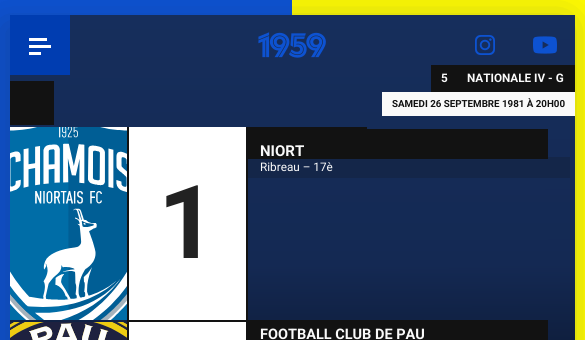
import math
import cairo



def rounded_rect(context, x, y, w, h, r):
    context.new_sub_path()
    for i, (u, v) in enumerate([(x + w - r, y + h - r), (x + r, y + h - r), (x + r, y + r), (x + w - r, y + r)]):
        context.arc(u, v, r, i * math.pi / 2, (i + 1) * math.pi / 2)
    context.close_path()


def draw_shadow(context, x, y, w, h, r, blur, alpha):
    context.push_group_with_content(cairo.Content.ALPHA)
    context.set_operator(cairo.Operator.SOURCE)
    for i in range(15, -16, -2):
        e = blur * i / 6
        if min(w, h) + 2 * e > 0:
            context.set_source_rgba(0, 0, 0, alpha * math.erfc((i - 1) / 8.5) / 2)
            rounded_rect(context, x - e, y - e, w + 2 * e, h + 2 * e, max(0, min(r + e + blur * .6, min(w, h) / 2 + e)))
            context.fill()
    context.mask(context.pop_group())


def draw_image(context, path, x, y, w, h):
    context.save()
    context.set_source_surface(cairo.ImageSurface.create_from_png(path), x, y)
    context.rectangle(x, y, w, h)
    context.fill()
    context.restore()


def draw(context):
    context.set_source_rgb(13 / 255, 82 / 255, 209 / 255)
    context.paint()
    context.set_source_rgb(1, 251 / 255, 0)
    context.rectangle(292, 0, 293, 340)
    context.fill()
    context.set_source_rgb(22 / 255, 46 / 255, 92 / 255)
    draw_shadow(context, 2, 23, 565, 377, 0, 20, 0.33)
    gradient = cairo.LinearGradient(292, 15, 293, 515)
    gradient.add_color_stop_rgba(0, 22 / 255, 46 / 255, 92 / 255, 1)
    gradient.add_color_stop_rgba(0.5, 20 / 255, 41 / 255, 83 / 255, 1)
    gradient.add_color_stop_rgba(0.85, 9 / 255, 18 / 255, 37 / 255, 1)
    gradient.add_color_stop_rgba(1, 6 / 255, 12 / 255, 23 / 255, 1)
    context.set_source(gradient)
    context.rectangle(10, 15, 565, 325)
    context.fill()
    context.set_source_rgb(0, 61 / 255, 177 / 255)
    context.rectangle(10, 15, 60, 60)
    context.fill()
    context.set_source_rgb(1, 1, 1)
    context.rectangle(29, 38, 18, 3)
    context.fill()
    context.rectangle(29, 45, 22, 3)
    context.fill()
    context.rectangle(29, 52, 12, 3)
    context.fill()
    draw_image(context, "images/1.png", 258, 32, 68, 26)
    draw_image(context, "images/2.png", 475, 35, 20, 20)
    draw_image(context, "images/3.png", 533, 36, 24, 18)
    context.set_source_rgb(18 / 255, 18 / 255, 18 / 255)
    context.rectangle(431, 65, 144, 27)
    context.fill()
    context.set_source_rgb(250 / 255, 250 / 255, 250 / 255)
    context.rectangle(382, 92, 193, 24)
    context.fill()
    context.set_source_rgb(18 / 255, 18 / 255, 18 / 255)
    context.rectangle(248, 127, 119, 2)
    context.fill()
    context.rectangle(10, 81, 44, 44)
    context.fill()
    context.set_source_rgb(20 / 255, 38 / 255, 73 / 255)
    context.rectangle(248, 157, 322, 21)
    context.fill()
    context.set_source_rgb(18 / 255, 18 / 255, 18 / 255)
    context.rectangle(248, 129, 300, 30)
    context.fill()
    context.rectangle(248, 320, 300, 20)
    context.fill()
    context.set_source_rgb(0, 109 / 255, 167 / 255)
    context.rectangle(10, 304, 117, 16)
    context.fill()
    draw_image(context, "images/4.png", 10, 127, 117, 193)
    context.set_source_rgb(18 / 255, 18 / 255, 18 / 255)
    context.rectangle(127, 127, 121, 213)
    context.fill()
    context.set_source_rgb(1, 1, 1)
    context.rectangle(129, 127, 117, 193)
    context.fill()
    context.rectangle(129, 322, 117, 18)
    context.fill()
    context.set_source_rgb(230 / 255, 203 / 255, 67 / 255)
    context.rectangle(10, 322, 117, 18)
    context.fill()
    draw_image(context, "images/5.png", 10, 322, 117, 18)
    context.select_font_face("Roboto", cairo.FontSlant.NORMAL, cairo.FontWeight.BOLD)
    context.set_font_size(11.75)
    context.set_source_rgb(250 / 255, 250 / 255, 250 / 255)
    context.move_to(441, 82)
    context.show_text("5")
    context.move_to(467, 82)
    context.show_text("NATIONALE IV - G")
    context.set_font_size(9.75)
    context.set_source_rgb(18 / 255, 18 / 255, 18 / 255)
    context.move_to(392, 107)
    context.show_text("SAMEDI 26 SEPTEMBRE 1981 À 20H00")
    context.set_font_size(15)
    context.set_source_rgb(250 / 255, 250 / 255, 250 / 255)
    context.move_to(260, 156)
    context.show_text("NIORT")
    context.set_font_size(14.5)
    context.move_to(260, 339)
    context.show_text("FOOTBALL CLUB DE PAU")
    context.select_font_face("Roboto")
    context.set_font_size(11.75)
    context.move_to(260, 171)
    context.show_text("Ribreau – 17è")
    context.select_font_face("Roboto", cairo.FontSlant.NORMAL, cairo.FontWeight.BOLD)
    context.set_font_size(102)
    context.set_source_rgb(34 / 255, 34 / 255, 34 / 255)
    context.move_to(158, 258)
    context.show_text("1")


surface = cairo.ImageSurface(cairo.Format.RGB24, 585, 340)
context = cairo.Context(surface)
options = cairo.FontOptions()
options.set_hint_metrics(cairo.HintMetrics.OFF)
options.set_hint_style(cairo.HintStyle.NONE)
context.set_font_options(options)
context.set_miter_limit(4)
draw(context)
surface.write_to_png("out.png")
